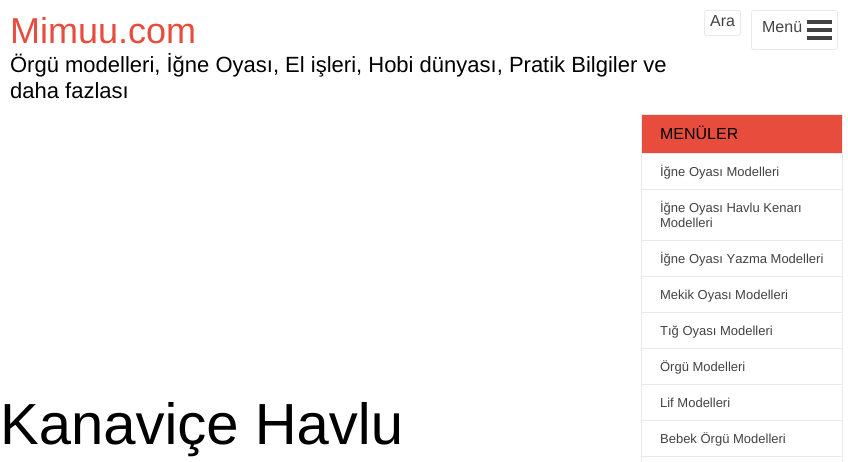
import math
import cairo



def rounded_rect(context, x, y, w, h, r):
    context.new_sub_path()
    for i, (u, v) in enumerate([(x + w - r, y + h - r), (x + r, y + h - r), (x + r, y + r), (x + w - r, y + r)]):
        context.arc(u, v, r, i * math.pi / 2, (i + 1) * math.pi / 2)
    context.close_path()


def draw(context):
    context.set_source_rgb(1, 1, 1)
    context.paint()
    rounded_rect(context, 704.5, 10.5, 36, 25, 2.5)
    context.set_source_rgb(233 / 255, 233 / 255, 233 / 255)
    context.set_line_width(1)
    context.stroke()
    rounded_rect(context, 751.5, 10.5, 86, 39, 2.5)
    context.stroke()
    context.set_source_rgb(66 / 255, 66 / 255, 66 / 255)
    context.rectangle(807, 20, 25, 4)
    context.fill()
    context.rectangle(807, 28, 25, 4)
    context.fill()
    context.rectangle(807, 36, 25, 4)
    context.fill()
    context.rectangle(641.5, 114.5, 201, 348)
    context.set_source_rgb(233 / 255, 233 / 255, 233 / 255)
    context.stroke()
    context.set_source_rgb(231 / 255, 76 / 255, 60 / 255)
    context.rectangle(642, 115, 200, 38)
    context.fill()
    context.set_source_rgb(233 / 255, 233 / 255, 233 / 255)
    context.rectangle(642, 153, 200, 1)
    context.fill()
    context.rectangle(642, 189, 200, 1)
    context.fill()
    context.rectangle(642, 240, 200, 1)
    context.fill()
    context.rectangle(642, 276, 200, 1)
    context.fill()
    context.rectangle(642, 312, 200, 1)
    context.fill()
    context.rectangle(642, 348, 200, 1)
    context.fill()
    context.rectangle(642, 384, 200, 1)
    context.fill()
    context.rectangle(642, 420, 200, 1)
    context.fill()
    context.rectangle(642, 456, 200, 1)
    context.fill()
    context.select_font_face("Liberation Sans")
    context.set_font_size(36)
    context.set_source_rgb(231 / 255, 76 / 255, 60 / 255)
    context.move_to(10, 43)
    context.show_text("Mimuu.com")
    context.set_font_size(22)
    context.set_source_rgb(0, 0, 0)
    context.move_to(10, 72)
    context.show_text("Örgü modelleri, İğne Oyası, El işleri, Hobi dünyası, Pratik Bilgiler ve")
    context.move_to(10, 98)
    context.show_text("daha fazlası")
    context.set_font_size(16)
    context.set_source_rgb(66 / 255, 66 / 255, 66 / 255)
    context.move_to(710, 26)
    context.show_text("Ara")
    context.move_to(762, 32)
    context.show_text("Menü")
    context.set_font_size(58)
    context.set_source_rgb(0, 0, 0)
    context.move_to(0, 444)
    context.show_text("Kanaviçe Havlu")
    context.set_font_size(16)
    context.move_to(660, 139)
    context.show_text("MENÜLER")
    context.set_font_size(13)
    context.set_source_rgb(66 / 255, 66 / 255, 66 / 255)
    context.move_to(660, 176)
    context.show_text("İğne Oyası Modelleri")
    context.move_to(660, 212)
    context.show_text("İğne Oyası Havlu Kenarı")
    context.move_to(660, 227)
    context.show_text("Modelleri")
    context.move_to(660, 263)
    context.show_text("İğne Oyası Yazma Modelleri")
    context.move_to(660, 299)
    context.show_text("Mekik Oyası Modelleri")
    context.move_to(660, 335)
    context.show_text("Tığ Oyası Modelleri")
    context.move_to(660, 371)
    context.show_text("Örgü Modelleri")
    context.move_to(660, 407)
    context.show_text("Lif Modelleri")
    context.move_to(660, 443)
    context.show_text("Bebek Örgü Modelleri")


surface = cairo.ImageSurface(cairo.Format.RGB24, 848, 462)
context = cairo.Context(surface)
options = cairo.FontOptions()
options.set_hint_metrics(cairo.HintMetrics.OFF)
options.set_hint_style(cairo.HintStyle.NONE)
context.set_font_options(options)
context.set_miter_limit(4)
draw(context)
surface.write_to_png("out.png")
